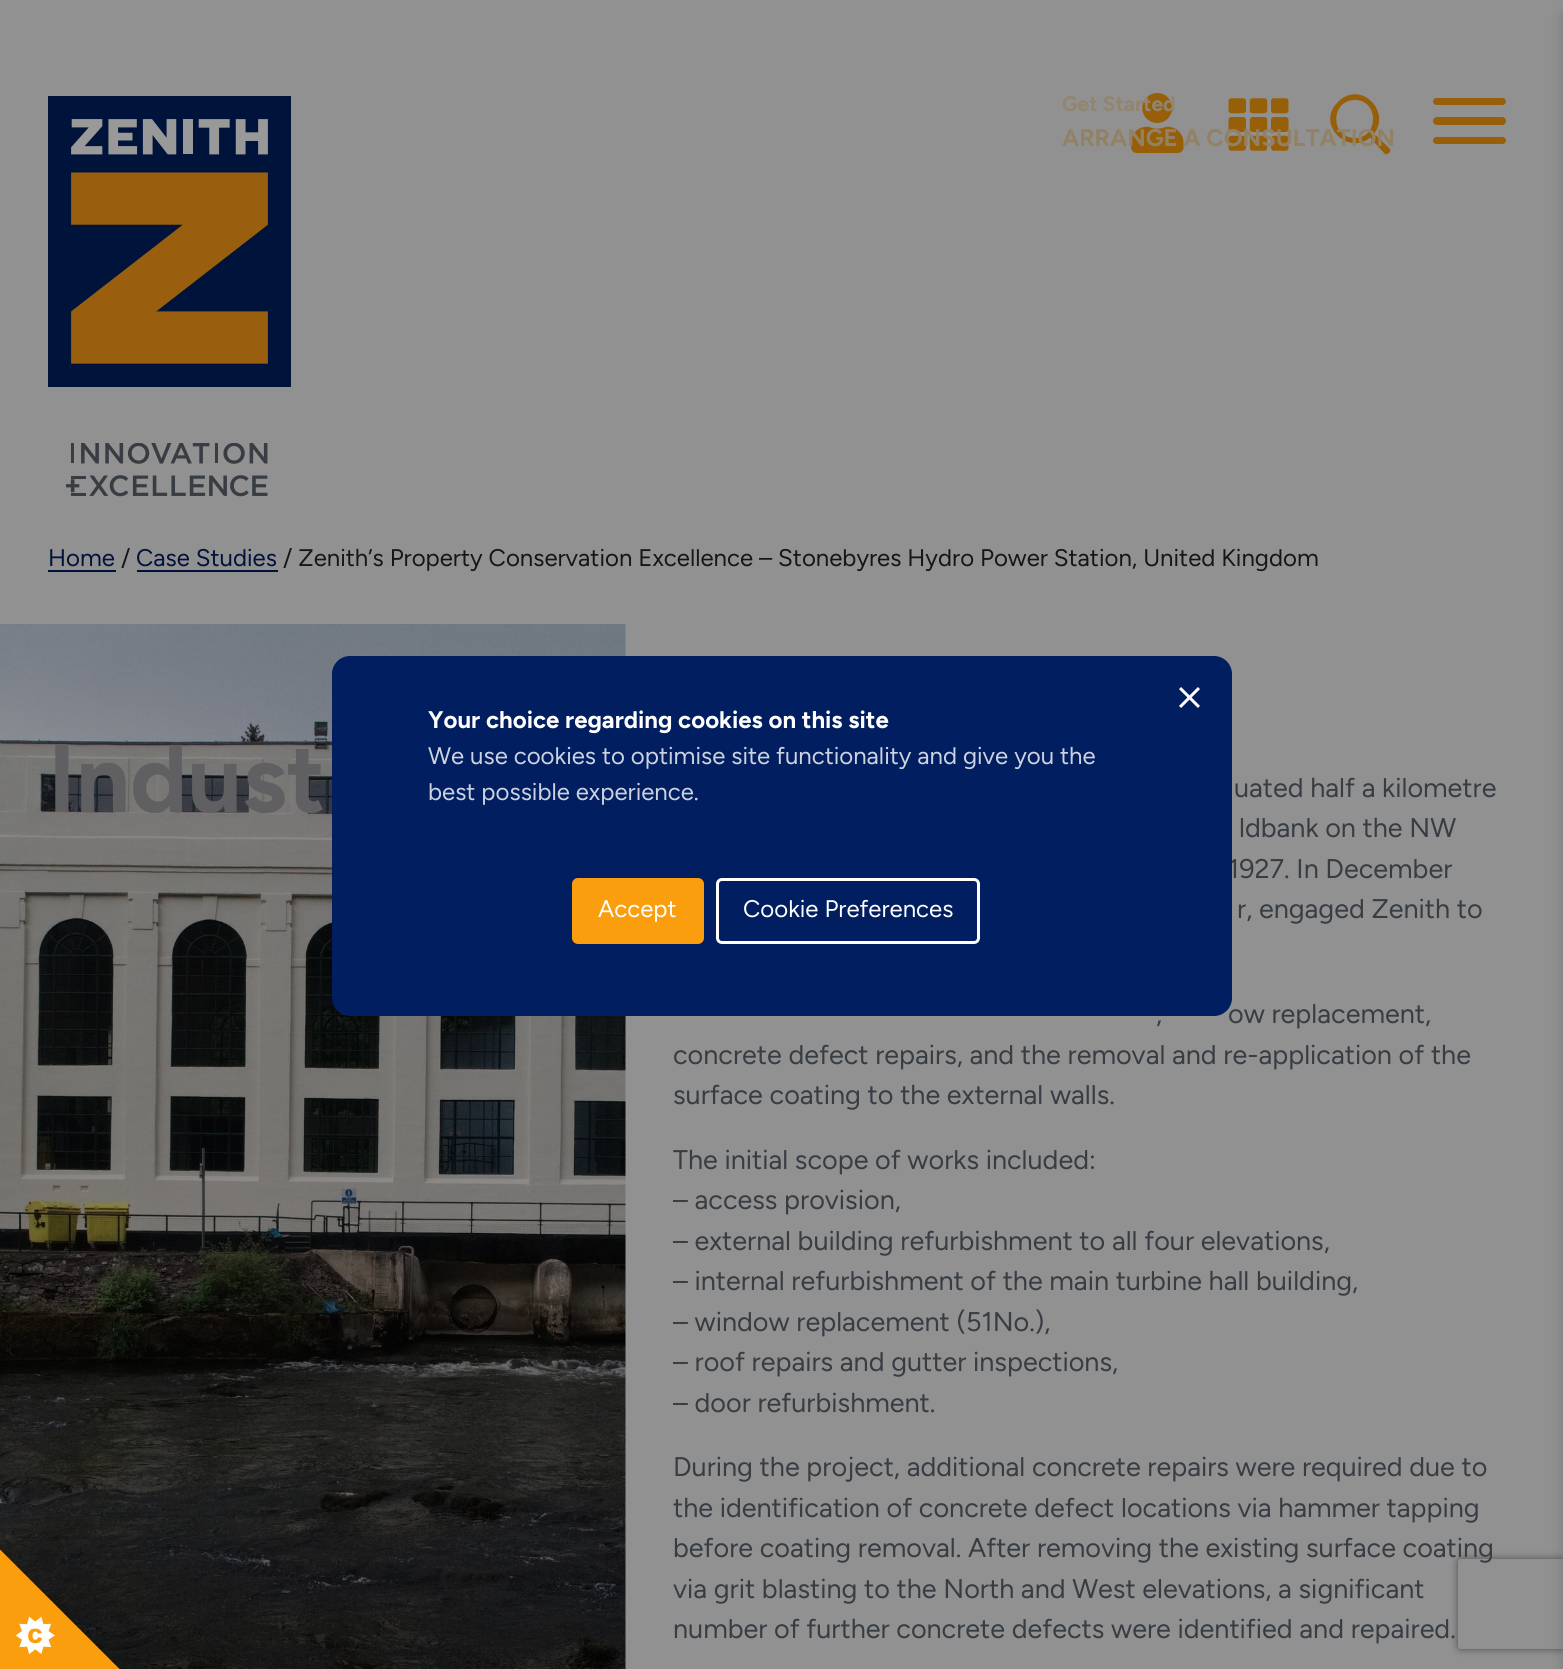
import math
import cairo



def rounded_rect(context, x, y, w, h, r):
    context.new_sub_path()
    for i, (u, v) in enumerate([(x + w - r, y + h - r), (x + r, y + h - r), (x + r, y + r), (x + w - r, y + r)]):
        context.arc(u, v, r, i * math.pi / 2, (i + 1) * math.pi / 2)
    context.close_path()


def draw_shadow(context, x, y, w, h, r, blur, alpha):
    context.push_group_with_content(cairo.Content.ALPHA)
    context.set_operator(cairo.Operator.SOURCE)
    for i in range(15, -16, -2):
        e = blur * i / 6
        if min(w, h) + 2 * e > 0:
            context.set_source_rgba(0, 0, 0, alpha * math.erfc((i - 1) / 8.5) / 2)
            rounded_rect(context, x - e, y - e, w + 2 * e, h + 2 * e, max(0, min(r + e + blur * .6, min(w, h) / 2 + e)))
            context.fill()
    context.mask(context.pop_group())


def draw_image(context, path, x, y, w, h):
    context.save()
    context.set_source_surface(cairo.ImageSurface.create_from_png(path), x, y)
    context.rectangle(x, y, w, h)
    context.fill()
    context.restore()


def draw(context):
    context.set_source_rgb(145 / 255, 145 / 255, 145 / 255)
    context.paint()
    draw_image(context, "images/1.png", 48, 96, 243, 401)
    draw_image(context, "images/2.png", 1131, 93, 53, 60)
    draw_image(context, "images/3.png", 1228, 98, 61, 53)
    context.set_source_rgb(150 / 255, 95 / 255, 8 / 255)
    context.new_path()
    context.move_to(1390, 149)
    context.line_to(1381, 140)
    context.curve_to(1377, 137, 1377, 135, 1373, 135)
    context.curve_to(1393, 112, 1360, 79, 1338, 102)
    context.curve_to(1315, 124, 1348, 157, 1371, 137)
    context.curve_to(1371, 140, 1371, 140, 1374, 142)
    context.line_to(1383, 152)
    context.curve_to(1386, 155, 1386, 155, 1389, 153)
    context.curve_to(1390, 152, 1391, 151, 1390, 149)
    context.close_path()
    context.move_to(1355, 138)
    context.curve_to(1330, 138, 1330, 100, 1355, 100)
    context.curve_to(1379, 100, 1379, 138, 1355, 138)
    context.close_path()
    context.fill()
    rounded_rect(context, 1433, 98, 73, 7, 3.5)
    context.fill()
    rounded_rect(context, 1433, 117, 73, 8, 4)
    context.fill()
    rounded_rect(context, 1433, 137, 73, 7, 3.5)
    context.fill()
    context.set_source_rgb(0, 0, 0)
    draw_shadow(context, 1563, 15, 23, 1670, 0, 7.5, 0.16)
    context.set_source_rgb(0, 18 / 255, 58 / 255)
    context.rectangle(48, 570, 68, 2)
    context.fill()
    context.rectangle(137, 570, 141, 2)
    context.fill()
    draw_image(context, "images/4.png", 0, 624, 626, 1045)
    draw_image(context, "images/6.png", 0, 1550, 120, 119)
    context.save()
    context.set_fill_rule(cairo.FillRule.EVEN_ODD)
    context.new_path()
    context.move_to(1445, 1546)
    context.line_to(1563, 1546)
    context.line_to(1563, 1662)
    context.line_to(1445, 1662)
    context.close_path()
    context.move_to(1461, 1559)
    context.line_to(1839, 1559)
    context.curve_to(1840.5, 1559, 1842, 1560.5, 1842, 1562)
    context.line_to(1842, 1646)
    context.curve_to(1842, 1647.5, 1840.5, 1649, 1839, 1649)
    context.line_to(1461, 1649)
    context.curve_to(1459.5, 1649, 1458, 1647.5, 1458, 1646)
    context.line_to(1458, 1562)
    context.curve_to(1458, 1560.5, 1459.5, 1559, 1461, 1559)
    context.close_path()
    context.clip()
    context.set_source_rgb(77 / 255, 77 / 255, 77 / 255)
    draw_shadow(context, 1458, 1559, 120, 90, 3, 4, 1)
    context.restore()
    context.select_font_face("Figtree", cairo.FontSlant.NORMAL, cairo.FontWeight.BOLD)
    context.set_font_size(21)
    context.set_source_rgb(146 / 255, 133 / 255, 111 / 255)
    context.move_to(1062, 111)
    context.show_text("Get Started")
    context.set_font_size(24)
    context.set_source_rgb(147 / 255, 129 / 255, 101 / 255)
    context.move_to(1062, 146)
    context.show_text("ARRANGE A CONSULTATION")
    context.set_font_size(96)
    context.set_source_rgb(96 / 255, 96 / 255, 98 / 255)
    context.move_to(48, 812)
    context.show_text("Indust")
    context.select_font_face("Figtree")
    context.set_font_size(24)
    context.set_source_rgb(0, 18 / 255, 58 / 255)
    context.move_to(48, 566)
    context.show_text("Home")
    context.set_source_rgb(20 / 255, 22 / 255, 25 / 255)
    context.move_to(121, 566)
    context.show_text("/")
    context.set_source_rgb(0, 18 / 255, 58 / 255)
    context.move_to(136, 566)
    context.show_text("Case Studies")
    context.set_source_rgb(20 / 255, 22 / 255, 25 / 255)
    context.move_to(283, 566)
    context.show_text("/ Zenith’s Property Conservation Excellence – Stonebyres Hydro Power Station, United Kingdom")
    context.set_font_size(27)
    context.set_source_rgb(55 / 255, 61 / 255, 67 / 255)
    context.move_to(1234, 797)
    context.show_text("uated half a kilometre")
    context.move_to(1239, 837)
    context.show_text("ldbank on the NW")
    context.move_to(1228, 878)
    context.show_text("1927. In December")
    context.move_to(1237, 918)
    context.show_text("r, engaged Zenith to")
    context.move_to(1156, 1023)
    context.show_text(",")
    context.move_to(1228, 1023)
    context.show_text("ow replacement,")
    context.move_to(673, 1064)
    context.show_text("concrete defect repairs, and the removal and re-application of the")
    context.move_to(673, 1104)
    context.show_text("surface coating to the external walls.")
    context.move_to(673, 1169)
    context.show_text("The initial scope of works included:")
    context.move_to(673, 1209)
    context.show_text("– access provision,")
    context.move_to(673, 1250)
    context.show_text("– external building refurbishment to all four elevations,")
    context.move_to(673, 1290)
    context.show_text("– internal refurbishment of the main turbine hall building,")
    context.move_to(673, 1331)
    context.show_text("– window replacement (51No.),")
    context.move_to(673, 1371)
    context.show_text("– roof repairs and gutter inspections,")
    context.move_to(673, 1412)
    context.show_text("– door refurbishment.")
    context.move_to(673, 1476)
    context.show_text("During the project, additional concrete repairs were required due to")
    context.move_to(673, 1517)
    context.show_text("the identification of concrete defect locations via hammer tapping")
    context.move_to(673, 1557)
    context.show_text("before coating removal. After removing the existing surface coating")
    context.move_to(673, 1598)
    context.show_text("via grit blasting to the North and West elevations, a significant")
    context.move_to(673, 1638)
    context.show_text("number of further concrete defects were identified and repaired.")
    context.set_source_rgb(0, 30 / 255, 96 / 255)
    rounded_rect(context, 332, 656, 900, 360, 18)
    context.fill()
    draw_image(context, "images/5.png", 1179, 687, 21, 21)
    context.select_font_face("Figtree", cairo.FontSlant.NORMAL, cairo.FontWeight.BOLD)
    context.set_font_size(24)
    context.set_source_rgb(1, 1, 1)
    context.move_to(428, 728)
    context.show_text("Your choice regarding cookies on this site")
    context.select_font_face("Figtree")
    context.set_source_rgb(204 / 255, 210 / 255, 223 / 255)
    context.move_to(428, 764)
    context.show_text("We use cookies to optimise site functionality and give you the")
    context.move_to(428, 800)
    context.show_text("best possible experience.")
    context.set_source_rgb(250 / 255, 158 / 255, 13 / 255)
    rounded_rect(context, 573.5, 879.5, 129, 63, 4.5)
    context.fill_preserve()
    context.set_line_width(3)
    context.stroke()
    context.set_source_rgb(1, 1, 1)
    context.move_to(598, 917)
    context.show_text("Accept")
    rounded_rect(context, 717.5, 879.5, 261, 63, 4.5)
    context.stroke()
    context.move_to(743, 917)
    context.show_text("Cookie Preferences")


surface = cairo.ImageSurface(cairo.Format.RGB24, 1563, 1669)
context = cairo.Context(surface)
options = cairo.FontOptions()
options.set_hint_metrics(cairo.HintMetrics.OFF)
options.set_hint_style(cairo.HintStyle.NONE)
context.set_font_options(options)
context.set_miter_limit(4)
draw(context)
surface.write_to_png("out.png")
